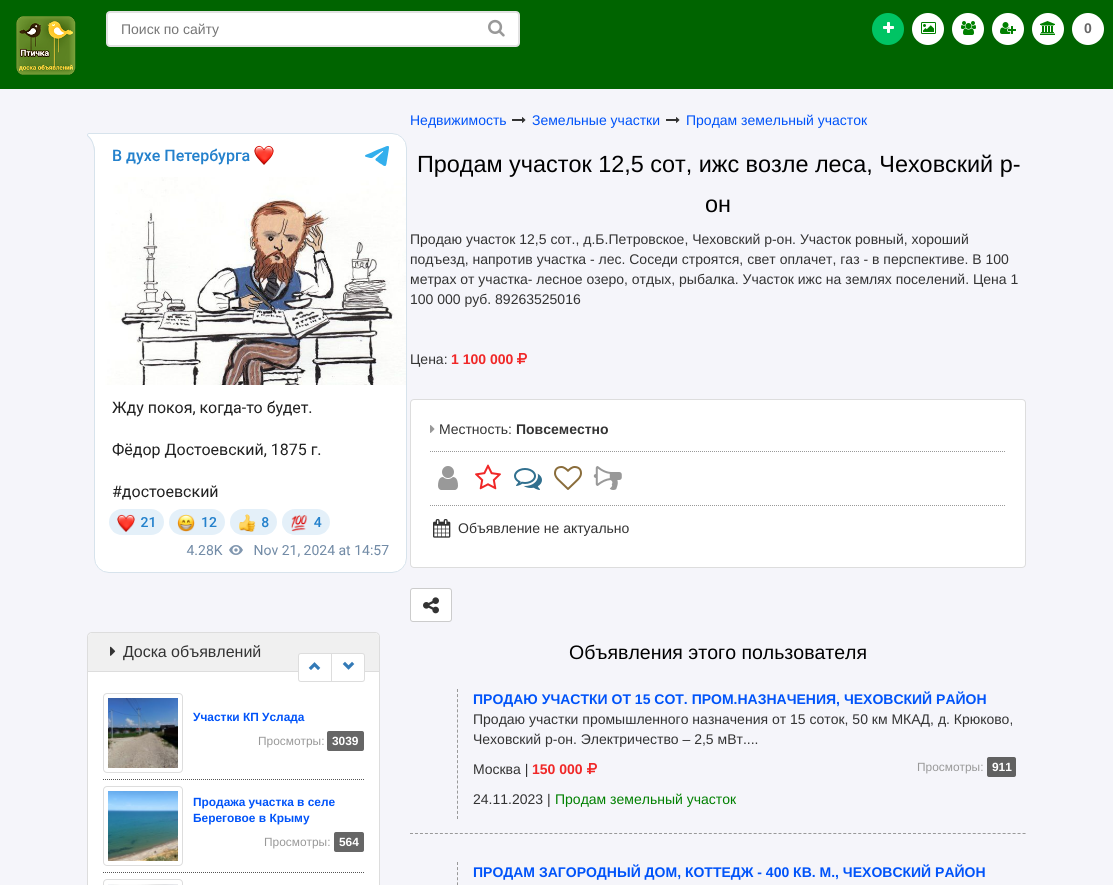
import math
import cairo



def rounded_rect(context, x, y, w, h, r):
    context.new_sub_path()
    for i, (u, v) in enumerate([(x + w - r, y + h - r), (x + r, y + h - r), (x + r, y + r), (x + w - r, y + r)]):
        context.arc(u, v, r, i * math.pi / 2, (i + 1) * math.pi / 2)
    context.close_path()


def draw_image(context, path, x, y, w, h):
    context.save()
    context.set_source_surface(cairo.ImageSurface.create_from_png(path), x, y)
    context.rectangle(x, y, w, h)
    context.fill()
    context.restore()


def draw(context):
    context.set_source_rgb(245 / 255, 245 / 255, 250 / 255)
    context.paint()
    context.set_source_rgb(0, 100 / 255, 0)
    context.rectangle(0, 0, 1113, 89)
    context.fill()
    draw_image(context, "images/1.png", 16, 16, 60, 59)
    context.set_source_rgb(1, 1, 1)
    rounded_rect(context, 107, 12, 412, 34, 3)
    context.fill_preserve()
    context.set_source_rgb(226 / 255, 226 / 255, 226 / 255)
    context.stroke()
    draw_image(context, "images/2.png", 488, 19, 17, 18)
    context.set_source_rgb(0, 196 / 255, 100 / 255)
    context.arc(888, 29, 16, 0, 2 * math.pi)
    context.fill()
    draw_image(context, "images/3.png", 883, 22, 11, 11)
    context.set_source_rgb(1, 1, 1)
    context.arc(928, 29, 16, 0, 2 * math.pi)
    context.fill()
    draw_image(context, "images/4.png", 921, 22, 15, 12)
    context.arc(968, 29, 16, 0, 2 * math.pi)
    context.fill()
    draw_image(context, "images/5.png", 961, 21, 15, 14)
    context.arc(1008, 29, 16, 0, 2 * math.pi)
    context.fill()
    draw_image(context, "images/6.png", 1000, 22, 16, 12)
    context.arc(1048, 29, 16, 0, 2 * math.pi)
    context.fill()
    draw_image(context, "images/7.png", 1040, 21, 15, 14)
    context.arc(1088, 29, 16, 0, 2 * math.pi)
    context.fill()
    draw_image(context, "images/8.png", 87, 133, 320, 440)
    context.new_path()
    context.move_to(92, 632.5)
    context.line_to(375, 632.5)
    context.curve_to(377.5, 632.5, 379.5, 634.5, 379.5, 637)
    context.line_to(379.5, 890.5)
    context.line_to(87.5, 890.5)
    context.line_to(87.5, 637)
    context.curve_to(87.5, 634.5, 89.5, 632.5, 92, 632.5)
    context.close_path()
    context.fill_preserve()
    context.set_source_rgb(221 / 255, 221 / 255, 221 / 255)
    context.set_line_width(1)
    context.stroke()
    context.set_source_rgb(240 / 255, 240 / 255, 240 / 255)
    context.new_path()
    context.move_to(92, 633)
    context.line_to(375, 633)
    context.curve_to(377, 633, 379, 635, 379, 637)
    context.line_to(379, 672)
    context.line_to(88, 672)
    context.line_to(88, 637)
    context.curve_to(88, 635, 90, 633, 92, 633)
    context.close_path()
    context.fill()
    context.set_source_rgb(221 / 255, 221 / 255, 221 / 255)
    context.rectangle(88, 671, 291, 1)
    context.fill()
    draw_image(context, "images/9.png", 110, 646, 6, 10)
    context.set_source_rgb(1, 1, 1)
    context.new_path()
    context.move_to(301, 653.5)
    context.line_to(331.5, 653.5)
    context.line_to(331.5, 681.5)
    context.line_to(301, 681.5)
    context.curve_to(299.5, 681.5, 298.5, 680.5, 298.5, 679)
    context.line_to(298.5, 656)
    context.curve_to(298.5, 654.5, 299.5, 653.5, 301, 653.5)
    context.close_path()
    context.fill_preserve()
    context.set_source_rgb(221 / 255, 221 / 255, 221 / 255)
    context.stroke()
    draw_image(context, "images/10.png", 308, 662, 13, 8)
    context.set_source_rgb(1, 1, 1)
    context.new_path()
    context.move_to(331.5, 653.5)
    context.line_to(362, 653.5)
    context.curve_to(363.5, 653.5, 364.5, 654.5, 364.5, 656)
    context.line_to(364.5, 679)
    context.curve_to(364.5, 680.5, 363.5, 681.5, 362, 681.5)
    context.line_to(331.5, 681.5)
    context.close_path()
    context.fill_preserve()
    context.set_source_rgb(221 / 255, 221 / 255, 221 / 255)
    context.stroke()
    draw_image(context, "images/11.png", 342, 661, 13, 9)
    context.new_path()
    context.move_to(103, 779.5)
    context.line_to(364, 779.5)
    context.set_source_rgb(85 / 255, 85 / 255, 85 / 255)
    context.set_dash([1, 1])
    context.stroke()
    rounded_rect(context, 103.5, 693.5, 79, 79, 3.5)
    context.set_source_rgb(221 / 255, 221 / 255, 221 / 255)
    context.set_dash([])
    context.stroke()
    draw_image(context, "images/12.png", 108, 698, 70, 70)
    context.set_source_rgb(102 / 255, 102 / 255, 102 / 255)
    rounded_rect(context, 327, 731, 37, 20, 2)
    context.fill()
    context.new_path()
    context.move_to(103, 872.5)
    context.line_to(364, 872.5)
    context.set_source_rgb(85 / 255, 85 / 255, 85 / 255)
    context.set_dash([1, 1])
    context.stroke()
    rounded_rect(context, 103.5, 786.5, 79, 79, 3.5)
    context.set_source_rgb(221 / 255, 221 / 255, 221 / 255)
    context.set_dash([])
    context.stroke()
    draw_image(context, "images/13.png", 108, 791, 70, 70)
    context.set_source_rgb(102 / 255, 102 / 255, 102 / 255)
    rounded_rect(context, 334, 832, 30, 20, 2)
    context.fill()
    rounded_rect(context, 103.5, 879.5, 79, 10, 3.5)
    context.set_source_rgb(221 / 255, 221 / 255, 221 / 255)
    context.stroke()
    draw_image(context, "images/14.png", 108, 884, 70, 1)
    draw_image(context, "images/15.png", 512, 117, 14, 6)
    draw_image(context, "images/15.png", 666, 117, 14, 6)
    draw_image(context, "images/16.png", 517, 353, 10, 11)
    context.set_source_rgb(1, 1, 1)
    rounded_rect(context, 410.5, 399.5, 615, 168, 3.5)
    context.fill_preserve()
    context.set_source_rgb(221 / 255, 221 / 255, 221 / 255)
    context.stroke()
    draw_image(context, "images/17.png", 430, 425, 5, 8)
    context.new_path()
    context.move_to(430, 451.5)
    context.line_to(1006, 451.5)
    context.set_source_rgb(153 / 255, 153 / 255, 153 / 255)
    context.set_dash([1, 1])
    context.stroke()
    draw_image(context, "images/18.png", 438, 466, 20, 24)
    draw_image(context, "images/19.png", 475, 464, 26, 26)
    draw_image(context, "images/20.png", 514, 468, 28, 22)
    draw_image(context, "images/21.png", 554, 466, 28, 24)
    draw_image(context, "images/22.png", 593, 466, 29, 24)
    context.new_path()
    context.move_to(430, 505.5)
    context.line_to(1006, 505.5)
    context.stroke()
    draw_image(context, "images/23.png", 433, 519, 18, 19)
    context.set_source_rgb(1, 1, 1)
    rounded_rect(context, 410.5, 588.5, 41, 33, 2.5)
    context.fill_preserve()
    context.set_source_rgb(204 / 255, 204 / 255, 204 / 255)
    context.set_dash([])
    context.stroke()
    draw_image(context, "images/24.png", 423, 597, 16, 17)
    context.new_path()
    context.move_to(410, 833.5)
    context.line_to(1026, 833.5)
    context.set_source_rgb(153 / 255, 153 / 255, 153 / 255)
    context.set_dash([3, 1.98])
    context.stroke()
    context.new_path()
    context.move_to(457.5, 689)
    context.line_to(457.5, 819)
    context.set_dash([3, 2.08])
    context.stroke()
    draw_image(context, "images/16.png", 587, 763, 10, 11)
    context.set_source_rgb(97 / 255, 97 / 255, 97 / 255)
    rounded_rect(context, 987, 757, 29, 20, 2)
    context.fill()
    context.new_path()
    context.move_to(457.5, 862)
    context.line_to(457.5, 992)
    context.set_source_rgb(153 / 255, 153 / 255, 153 / 255)
    context.stroke()
    context.select_font_face("Liberation Sans")
    context.set_font_size(14)
    context.set_source_rgb(117 / 255, 117 / 255, 117 / 255)
    context.move_to(121, 34)
    context.show_text("Поиск по сайту")
    context.select_font_face("Liberation Sans", cairo.FontSlant.NORMAL, cairo.FontWeight.BOLD)
    context.set_source_rgb(102 / 255, 102 / 255, 102 / 255)
    context.move_to(1084, 33)
    context.show_text("0")
    context.select_font_face("Liberation Sans")
    context.set_font_size(16)
    context.set_source_rgb(51 / 255, 51 / 255, 51 / 255)
    context.move_to(123, 657)
    context.show_text("Доска объявлений")
    context.select_font_face("Liberation Sans", cairo.FontSlant.NORMAL, cairo.FontWeight.BOLD)
    context.set_font_size(11.9)
    context.set_source_rgb(0, 83 / 255, 249 / 255)
    context.move_to(193, 721)
    context.show_text("Участки КП Услада")
    context.select_font_face("Liberation Sans")
    context.set_source_rgb(153 / 255, 153 / 255, 153 / 255)
    context.move_to(258, 745)
    context.show_text("Просмотры:")
    context.select_font_face("Liberation Sans", cairo.FontSlant.NORMAL, cairo.FontWeight.BOLD)
    context.set_source_rgb(1, 1, 1)
    context.move_to(332, 745)
    context.show_text("3039")
    context.set_source_rgb(0, 83 / 255, 249 / 255)
    context.move_to(193, 806)
    context.show_text("Продажа участка в селе")
    context.move_to(193, 822)
    context.show_text("Береговое в Крыму")
    context.select_font_face("Liberation Sans")
    context.set_source_rgb(153 / 255, 153 / 255, 153 / 255)
    context.move_to(264, 846)
    context.show_text("Просмотры:")
    context.select_font_face("Liberation Sans", cairo.FontSlant.NORMAL, cairo.FontWeight.BOLD)
    context.set_source_rgb(1, 1, 1)
    context.move_to(339, 846)
    context.show_text("564")
    context.select_font_face("Liberation Sans")
    context.set_font_size(14)
    context.set_source_rgb(0, 83 / 255, 249 / 255)
    context.move_to(410, 125)
    context.show_text("Недвижимость")
    context.move_to(532, 125)
    context.show_text("Земельные участки")
    context.move_to(686, 125)
    context.show_text("Продам земельный участок")
    context.set_font_size(23.4)
    context.set_source_rgb(0, 0, 0)
    context.move_to(417, 172)
    context.show_text("Продам участок 12,5 сот, ижс возле леса, Чеховский р-")
    context.move_to(705, 212)
    context.show_text("он")
    context.set_font_size(14)
    context.set_source_rgb(51 / 255, 51 / 255, 51 / 255)
    context.move_to(410, 244)
    context.show_text("Продаю участок 12,5 сот., д.Б.Петровское, Чеховский р-он. Участок ровный, хороший")
    context.move_to(410, 264)
    context.show_text("подъезд, напротив участка - лес. Соседи строятся, свет оплачет, газ - в перспективе. В 100")
    context.move_to(410, 284)
    context.show_text("метрах от участка- лесное озеро, отдых, рыбалка. Участок ижс на землях поселений. Цена 1")
    context.move_to(410, 304)
    context.show_text("100 000 руб. 89263525016")
    context.move_to(410, 364)
    context.show_text("Цена:")
    context.select_font_face("Liberation Sans", cairo.FontSlant.NORMAL, cairo.FontWeight.BOLD)
    context.set_source_rgb(240 / 255, 39 / 255, 39 / 255)
    context.move_to(451, 364)
    context.show_text("1 100 000")
    context.select_font_face("Liberation Sans")
    context.set_source_rgb(51 / 255, 51 / 255, 51 / 255)
    context.move_to(439, 434)
    context.show_text("Местность:")
    context.select_font_face("Liberation Sans", cairo.FontSlant.NORMAL, cairo.FontWeight.BOLD)
    context.move_to(516, 434)
    context.show_text("Повсеместно")
    context.select_font_face("Liberation Sans")
    context.move_to(458, 533)
    context.show_text("Объявление не актуально")
    context.set_font_size(19.5)
    context.set_source_rgb(0, 0, 0)
    context.move_to(569, 659)
    context.show_text("Объявления этого пользователя")
    context.select_font_face("Liberation Sans", cairo.FontSlant.NORMAL, cairo.FontWeight.BOLD)
    context.set_font_size(14)
    context.set_source_rgb(0, 83 / 255, 249 / 255)
    context.move_to(473, 704)
    context.show_text("ПРОДАЮ УЧАСТКИ ОТ 15 СОТ. ПРОМ.НАЗНАЧЕНИЯ, ЧЕХОВСКИЙ РАЙОН")
    context.select_font_face("Liberation Sans")
    context.set_source_rgb(51 / 255, 51 / 255, 51 / 255)
    context.move_to(473, 724)
    context.show_text("Продаю участки промышленного назначения от 15 соток, 50 км МКАД, д. Крюково,")
    context.move_to(473, 744)
    context.show_text("Чеховский р-он. Электричество – 2,5 мВт....")
    context.move_to(473, 774)
    context.show_text("Москва |")
    context.select_font_face("Liberation Sans", cairo.FontSlant.NORMAL, cairo.FontWeight.BOLD)
    context.set_source_rgb(240 / 255, 39 / 255, 39 / 255)
    context.move_to(532, 774)
    context.show_text("150 000")
    context.select_font_face("Liberation Sans")
    context.set_font_size(11.9)
    context.set_source_rgb(153 / 255, 153 / 255, 153 / 255)
    context.move_to(917, 771)
    context.show_text("Просмотры:")
    context.select_font_face("Liberation Sans", cairo.FontSlant.NORMAL, cairo.FontWeight.BOLD)
    context.set_source_rgb(1, 1, 1)
    context.move_to(992, 771)
    context.show_text("911")
    context.select_font_face("Liberation Sans")
    context.set_font_size(14)
    context.set_source_rgb(51 / 255, 51 / 255, 51 / 255)
    context.move_to(473, 804)
    context.show_text("24.11.2023 |")
    context.set_source_rgb(0, 128 / 255, 0)
    context.move_to(555, 804)
    context.show_text("Продам земельный участок")
    context.select_font_face("Liberation Sans", cairo.FontSlant.NORMAL, cairo.FontWeight.BOLD)
    context.set_source_rgb(0, 83 / 255, 249 / 255)
    context.move_to(473, 877)
    context.show_text("ПРОДАМ ЗАГОРОДНЫЙ ДОМ, КОТТЕДЖ - 400 КВ. М., ЧЕХОВСКИЙ РАЙОН")


surface = cairo.ImageSurface(cairo.Format.RGB24, 1113, 885)
context = cairo.Context(surface)
options = cairo.FontOptions()
options.set_hint_metrics(cairo.HintMetrics.OFF)
options.set_hint_style(cairo.HintStyle.NONE)
context.set_font_options(options)
context.set_miter_limit(4)
draw(context)
surface.write_to_png("out.png")
